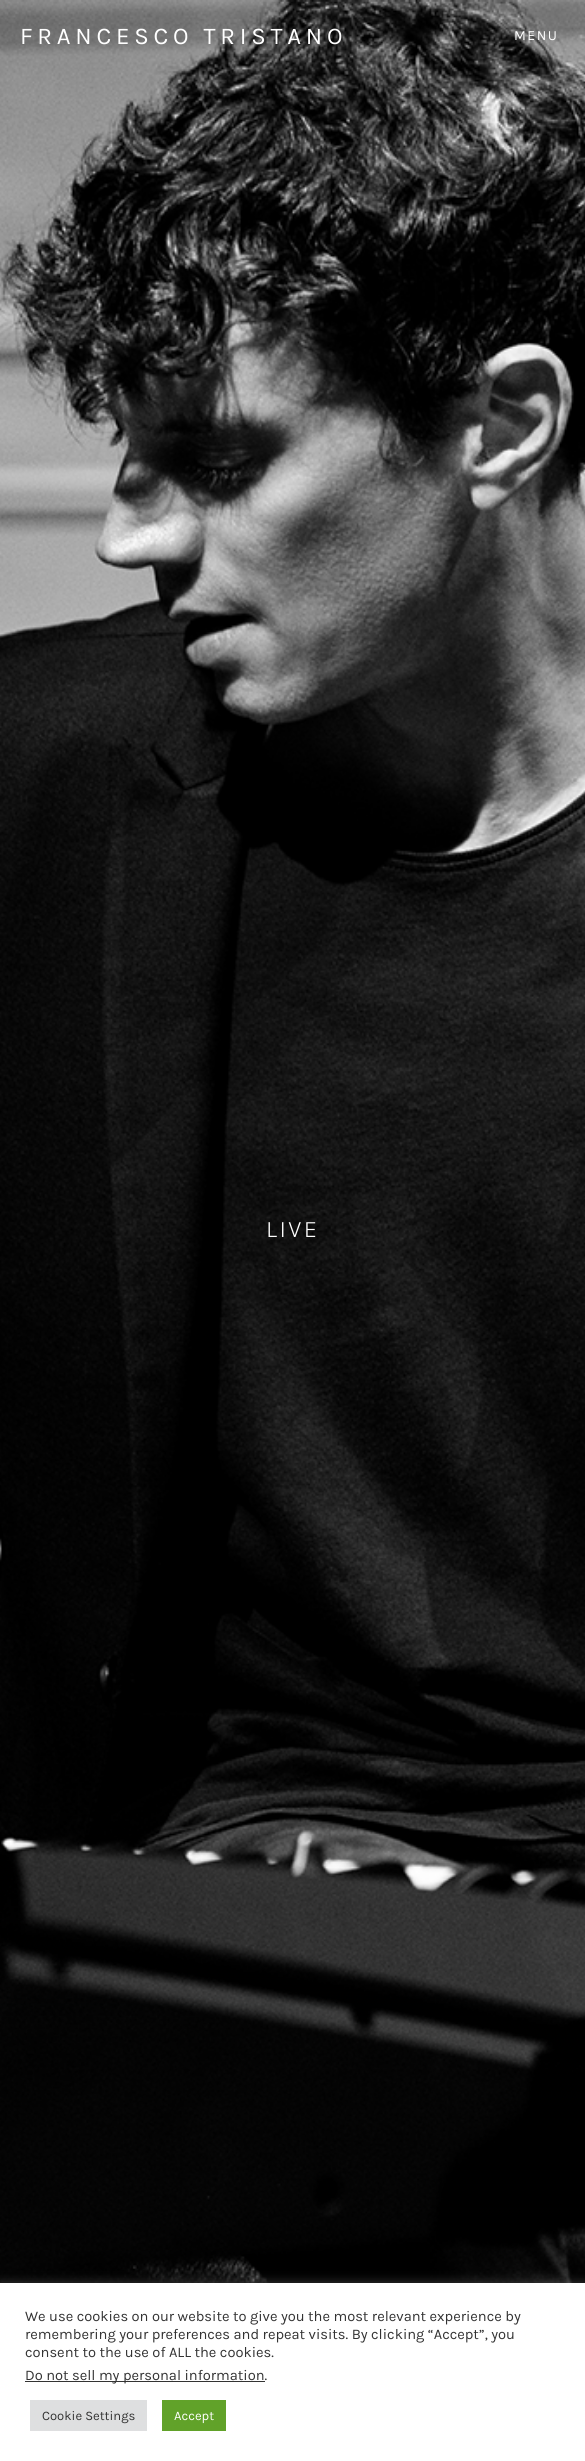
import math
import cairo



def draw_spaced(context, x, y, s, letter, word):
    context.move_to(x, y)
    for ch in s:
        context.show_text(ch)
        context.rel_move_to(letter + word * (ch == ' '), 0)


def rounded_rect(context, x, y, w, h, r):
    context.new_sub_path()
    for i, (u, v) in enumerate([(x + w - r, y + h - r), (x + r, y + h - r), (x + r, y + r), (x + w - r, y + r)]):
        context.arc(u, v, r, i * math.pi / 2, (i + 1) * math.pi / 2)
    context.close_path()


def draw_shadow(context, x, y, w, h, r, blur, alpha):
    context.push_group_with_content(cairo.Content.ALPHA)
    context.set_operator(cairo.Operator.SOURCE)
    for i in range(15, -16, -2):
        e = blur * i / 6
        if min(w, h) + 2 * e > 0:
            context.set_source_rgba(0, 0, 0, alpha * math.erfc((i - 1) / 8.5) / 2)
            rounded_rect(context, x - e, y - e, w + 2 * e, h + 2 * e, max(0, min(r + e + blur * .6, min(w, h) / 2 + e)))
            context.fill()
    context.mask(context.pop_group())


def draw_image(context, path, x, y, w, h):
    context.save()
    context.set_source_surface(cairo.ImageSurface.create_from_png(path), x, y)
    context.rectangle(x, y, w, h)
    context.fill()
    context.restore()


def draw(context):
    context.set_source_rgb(1, 1, 1)
    context.paint()
    draw_image(context, "images/1.png", 0, 0, 585, 2283)
    context.set_source_rgb(172 / 255, 171 / 255, 171 / 255)
    draw_shadow(context, 0, 2282, 585, 178, 0, 5, 0.3)
    context.set_source_rgb(1, 1, 1)
    context.rectangle(0, 2283, 585, 178)
    context.fill()
    context.set_source_rgb(51 / 255, 51 / 255, 51 / 255)
    context.rectangle(25, 2381, 240, 1)
    context.fill()
    context.set_source_rgb(222 / 255, 223 / 255, 224 / 255)
    context.rectangle(30, 2400, 117, 31)
    context.fill()
    context.set_source_rgb(97 / 255, 162 / 255, 41 / 255)
    context.rectangle(162, 2400, 64, 31)
    context.fill()
    context.select_font_face("Karla")
    context.set_font_size(24)
    context.set_source_rgb(1, 1, 1)
    draw_spaced(context, 20, 44, "FRANCESCO TRISTANO", 4.75, 0)
    context.set_font_size(14)
    draw_spaced(context, 514, 40, "MENU", 1.5, 0)
    context.select_font_face("Karla Light")
    context.set_font_size(24)
    draw_spaced(context, 266, 1237, "LIVE", 2.5, 0)
    context.select_font_face("Karla")
    context.set_font_size(14.65)
    context.set_source_rgb(51 / 255, 51 / 255, 51 / 255)
    context.move_to(25, 2321)
    context.show_text("We use cookies on our website to give you the most relevant experience by")
    context.move_to(25, 2339)
    context.show_text("remembering your preferences and repeat visits. By clicking “Accept”, you")
    context.move_to(25, 2357)
    context.show_text("consent to the use of ALL the cookies.")
    context.move_to(25, 2380)
    context.show_text("Do not sell my personal information.")
    context.set_font_size(13)
    context.move_to(42, 2420)
    context.show_text("Cookie Settings")
    context.set_source_rgb(1, 1, 1)
    context.move_to(174, 2420)
    context.show_text("Accept")


surface = cairo.ImageSurface(cairo.Format.RGB24, 585, 2461)
context = cairo.Context(surface)
options = cairo.FontOptions()
options.set_hint_metrics(cairo.HintMetrics.OFF)
options.set_hint_style(cairo.HintStyle.NONE)
context.set_font_options(options)
context.set_miter_limit(4)
draw(context)
surface.write_to_png("out.png")
